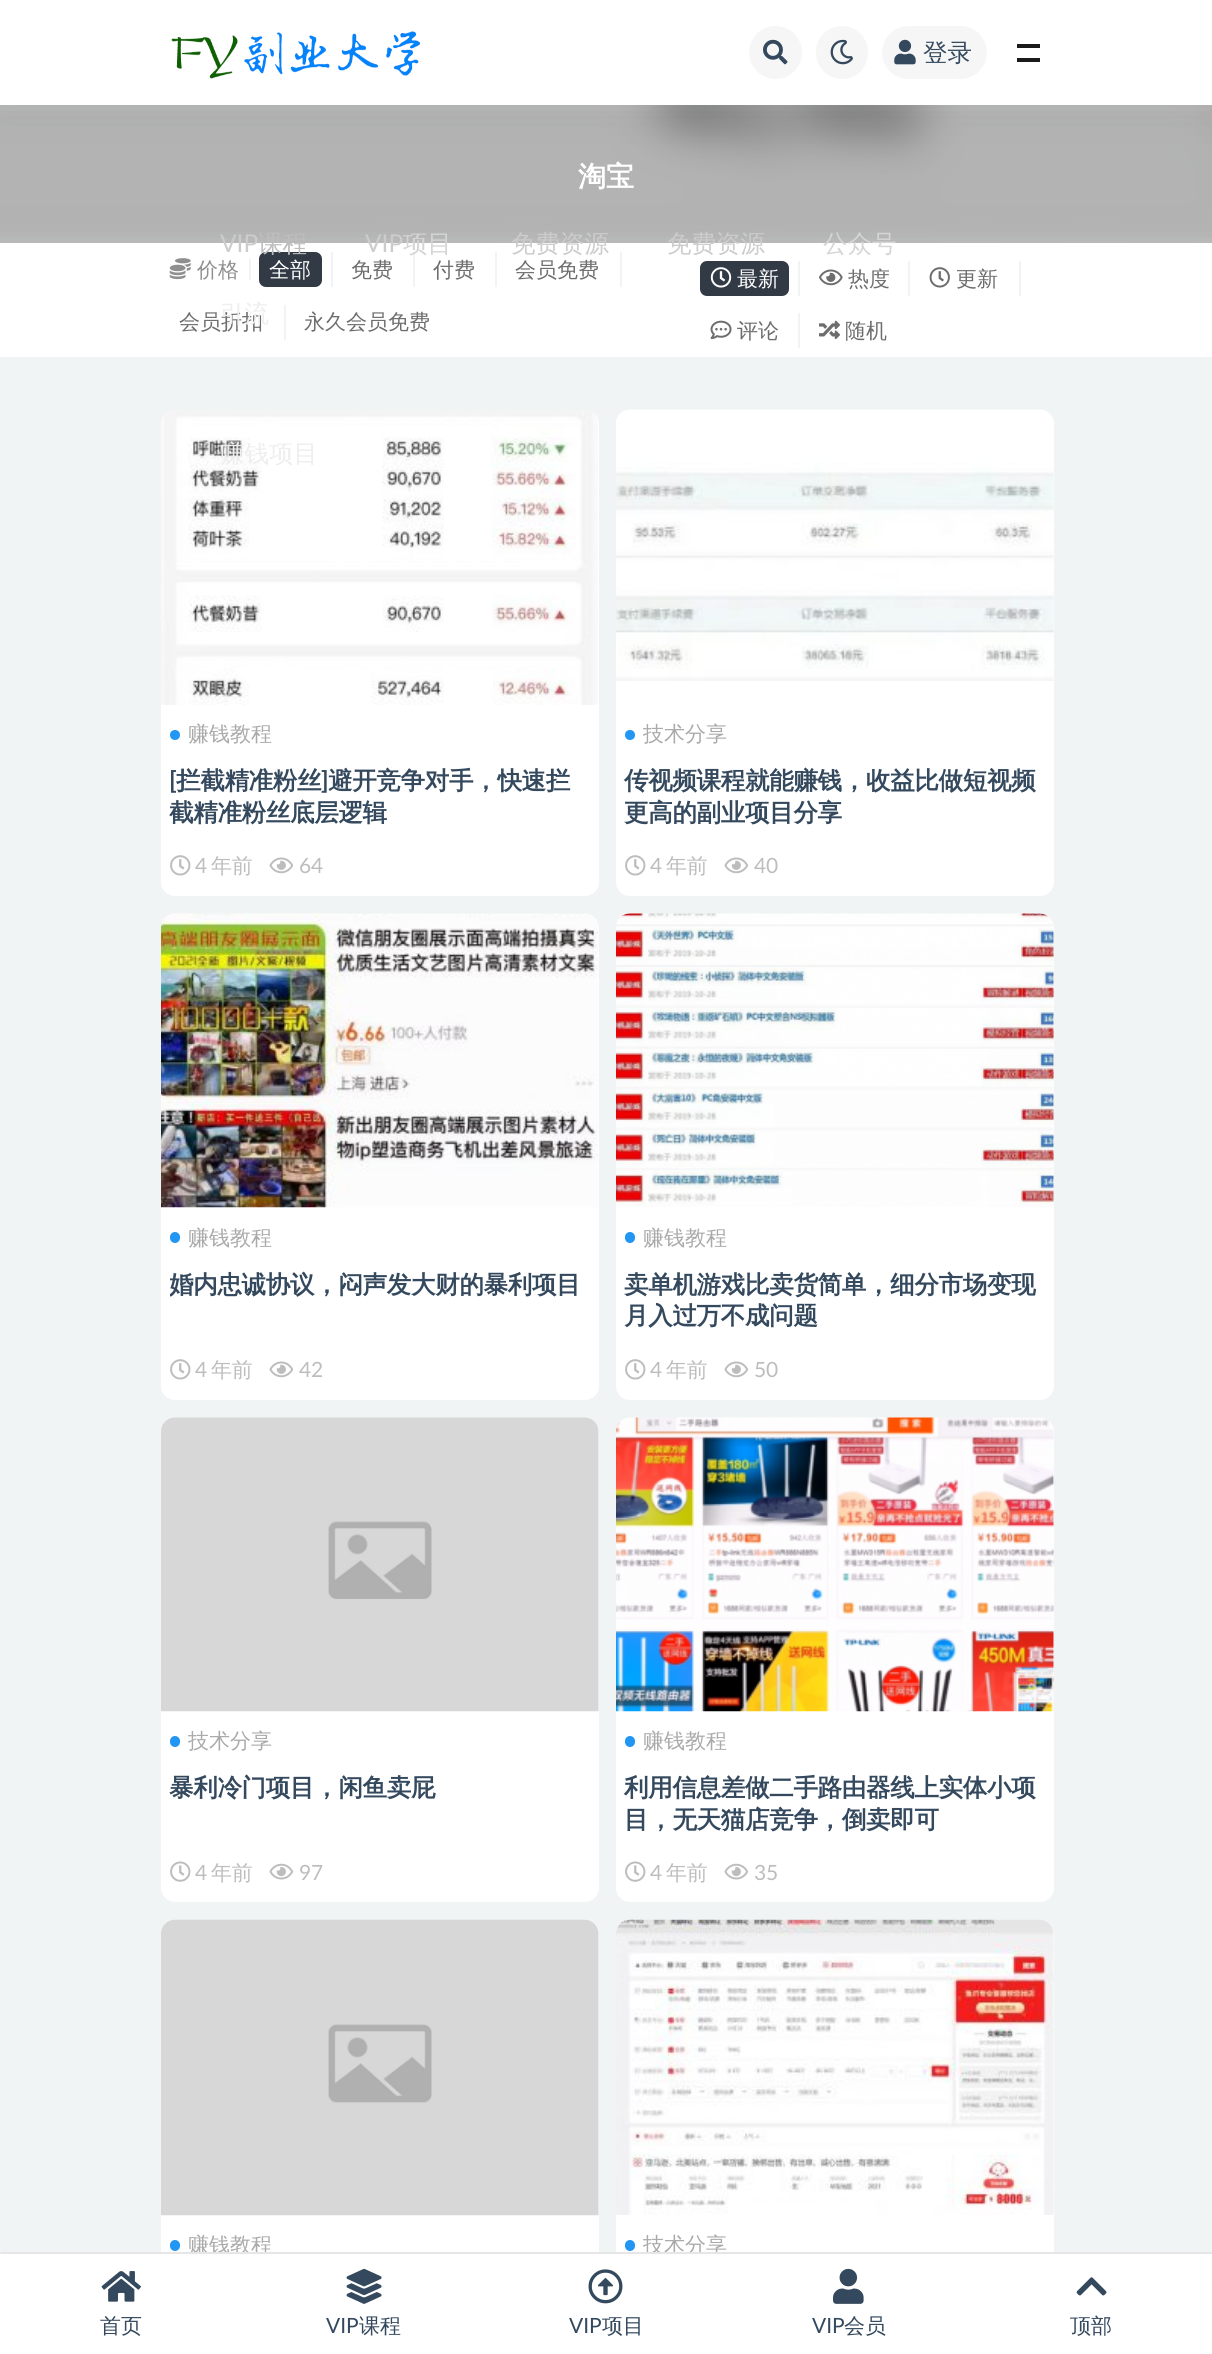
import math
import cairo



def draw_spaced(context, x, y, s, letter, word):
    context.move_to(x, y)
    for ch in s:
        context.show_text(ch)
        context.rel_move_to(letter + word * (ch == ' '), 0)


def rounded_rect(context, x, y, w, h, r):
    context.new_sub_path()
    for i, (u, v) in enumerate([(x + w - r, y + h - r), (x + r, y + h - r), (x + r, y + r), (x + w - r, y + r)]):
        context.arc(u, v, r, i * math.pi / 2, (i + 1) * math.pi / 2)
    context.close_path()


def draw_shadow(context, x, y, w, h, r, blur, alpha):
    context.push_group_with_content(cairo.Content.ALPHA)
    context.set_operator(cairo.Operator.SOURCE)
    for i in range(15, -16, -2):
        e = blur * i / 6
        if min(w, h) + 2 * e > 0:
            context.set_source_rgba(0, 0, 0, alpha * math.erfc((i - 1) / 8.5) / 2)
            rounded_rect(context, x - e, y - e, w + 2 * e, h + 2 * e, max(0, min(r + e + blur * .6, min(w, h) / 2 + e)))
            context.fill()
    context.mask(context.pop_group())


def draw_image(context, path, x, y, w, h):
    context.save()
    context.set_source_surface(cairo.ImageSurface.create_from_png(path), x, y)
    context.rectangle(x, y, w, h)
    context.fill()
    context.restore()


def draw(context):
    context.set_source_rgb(240 / 255, 244 / 255, 245 / 255)
    context.paint()
    draw_image(context, "images/5.png", 0, 105, 1212, 138)
    context.set_source_rgb(0, 0, 0)
    draw_shadow(context, 0, 0, 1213, 105, 0, 26, 0.07)
    draw_shadow(context, -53, 84, 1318, 180, 0, 17.5, 0.3)
    context.set_source_rgb(1, 1, 1)
    context.rectangle(0, 0, 1212, 105)
    context.fill()
    draw_image(context, "images/1.png", 171, 31, 250, 48)
    context.set_source_rgb(246 / 255, 246 / 255, 246 / 255)
    context.arc(775.5, 52.5, 26.5, 0, 2 * math.pi)
    context.fill()
    draw_image(context, "images/2.png", 763, 39, 25, 26)
    rounded_rect(context, 816, 26, 52, 53, 26)
    context.fill()
    draw_image(context, "images/3.png", 830, 39, 23, 26)
    rounded_rect(context, 882, 26, 105, 53, 26.5)
    context.fill()
    draw_image(context, "images/4.png", 894, 39, 22, 26)
    context.set_source_rgb(26 / 255, 26 / 255, 26 / 255)
    context.rectangle(1017, 44, 23, 4)
    context.fill()
    context.rectangle(1017, 58, 23, 4)
    context.fill()
    context.set_source_rgb(1, 1, 1)
    context.rectangle(0, 243, 1212, 114)
    context.fill()
    context.set_source_rgb(240 / 255, 244 / 255, 245 / 255)
    context.rectangle(249, 259, 2, 21)
    context.fill()
    draw_image(context, "images/6.png", 169, 258, 22, 22)
    context.rectangle(331, 252, 2, 35)
    context.fill()
    context.set_source_rgb(50 / 255, 58 / 255, 70 / 255)
    rounded_rect(context, 259, 252, 63, 35, 7)
    context.fill()
    context.set_source_rgb(240 / 255, 244 / 255, 245 / 255)
    context.rectangle(413, 252, 2, 35)
    context.fill()
    context.rectangle(495, 252, 2, 35)
    context.fill()
    context.rectangle(620, 252, 2, 35)
    context.fill()
    context.rectangle(284, 305, 2, 35)
    context.fill()
    context.rectangle(798, 261, 2, 35)
    context.fill()
    context.set_source_rgb(50 / 255, 58 / 255, 70 / 255)
    rounded_rect(context, 700, 261, 89, 35, 7)
    context.fill()
    draw_image(context, "images/7.png", 710, 267, 22, 21)
    context.set_source_rgb(240 / 255, 244 / 255, 245 / 255)
    context.rectangle(908, 261, 2, 35)
    context.fill()
    draw_image(context, "images/8.png", 819, 269, 24, 17)
    context.rectangle(1019, 261, 2, 35)
    context.fill()
    draw_image(context, "images/9.png", 929, 267, 21, 21)
    context.rectangle(798, 313, 2, 35)
    context.fill()
    draw_image(context, "images/10.png", 710, 320, 22, 20)
    draw_image(context, "images/11.png", 819, 320, 21, 19)
    context.set_source_rgb(1, 1, 1)
    rounded_rect(context, 161, 410, 438, 486, 14)
    context.fill()
    draw_image(context, "images/12.png", 161, 410, 437, 295)
    context.set_source_rgb(33 / 255, 150 / 255, 243 / 255)
    context.arc(175, 735, 5, 0, 2 * math.pi)
    context.fill()
    draw_image(context, "images/13.png", 170, 855, 21, 21)
    draw_image(context, "images/14.png", 269, 857, 25, 17)
    context.set_source_rgb(1, 1, 1)
    rounded_rect(context, 616, 410, 438, 486, 14)
    context.fill()
    draw_image(context, "images/15.png", 616, 409, 438, 272)
    context.set_source_rgb(33 / 255, 150 / 255, 243 / 255)
    context.arc(630, 735, 5, 0, 2 * math.pi)
    context.fill()
    draw_image(context, "images/13.png", 625, 855, 21, 21)
    draw_image(context, "images/14.png", 724, 857, 25, 17)
    context.set_source_rgb(1, 1, 1)
    rounded_rect(context, 161, 914, 438, 486, 14)
    context.fill()
    draw_image(context, "images/16.png", 161, 913, 438, 295)
    context.set_source_rgb(33 / 255, 150 / 255, 243 / 255)
    rounded_rect(context, 170, 1232, 10, 11, 5)
    context.fill()
    draw_image(context, "images/13.png", 170, 1359, 21, 21)
    draw_image(context, "images/14.png", 269, 1361, 25, 17)
    context.set_source_rgb(1, 1, 1)
    rounded_rect(context, 616, 914, 438, 486, 14)
    context.fill()
    draw_image(context, "images/17.png", 616, 913, 438, 294)
    context.set_source_rgb(33 / 255, 150 / 255, 243 / 255)
    rounded_rect(context, 625, 1232, 10, 11, 5)
    context.fill()
    draw_image(context, "images/13.png", 625, 1359, 21, 21)
    draw_image(context, "images/14.png", 724, 1361, 25, 17)
    context.set_source_rgb(1, 1, 1)
    rounded_rect(context, 161, 1418, 438, 484, 14)
    context.fill()
    draw_image(context, "images/18.png", 161, 1417, 438, 295)
    context.set_source_rgb(33 / 255, 150 / 255, 243 / 255)
    rounded_rect(context, 170, 1736, 10, 11, 5)
    context.fill()
    draw_image(context, "images/19.png", 170, 1861, 21, 21)
    draw_image(context, "images/20.png", 269, 1863, 25, 17)
    context.set_source_rgb(1, 1, 1)
    rounded_rect(context, 616, 1418, 438, 484, 14)
    context.fill()
    draw_image(context, "images/21.png", 616, 1417, 438, 295)
    context.set_source_rgb(33 / 255, 150 / 255, 243 / 255)
    rounded_rect(context, 625, 1736, 10, 11, 5)
    context.fill()
    draw_image(context, "images/19.png", 625, 1861, 21, 21)
    draw_image(context, "images/20.png", 724, 1863, 25, 17)
    context.set_source_rgb(1, 1, 1)
    rounded_rect(context, 161, 1920, 438, 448, 14)
    context.fill()
    draw_image(context, "images/22.png", 161, 1919, 438, 297)
    context.set_source_rgb(33 / 255, 150 / 255, 243 / 255)
    rounded_rect(context, 170, 2240, 10, 11, 5)
    context.fill()
    context.set_source_rgb(1, 1, 1)
    rounded_rect(context, 616, 1920, 438, 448, 14)
    context.fill()
    draw_image(context, "images/23.png", 616, 1919, 438, 296)
    context.set_source_rgb(33 / 255, 150 / 255, 243 / 255)
    rounded_rect(context, 625, 2240, 10, 11, 5)
    context.fill()
    context.select_font_face("WenQuanYi Zen Hei Medium")
    context.set_font_size(24.5)
    context.set_source_rgb(52 / 255, 73 / 255, 94 / 255)
    context.move_to(923, 61)
    context.show_text("登录")
    context.select_font_face("WenQuanYi Zen Hei", cairo.FontSlant.NORMAL, cairo.FontWeight.BOLD)
    context.set_font_size(28)
    context.set_source_rgb(1, 1, 1)
    context.move_to(578, 186)
    context.show_text("淘宝")
    context.select_font_face("WenQuanYi Zen Hei Medium")
    context.set_font_size(21)
    context.set_source_rgb(143 / 255, 143 / 255, 143 / 255)
    context.move_to(197, 277)
    context.show_text("价格")
    context.set_source_rgb(1, 1, 1)
    context.move_to(269, 277)
    context.show_text("全部")
    context.set_source_rgb(109 / 255, 109 / 255, 109 / 255)
    context.move_to(351, 277)
    context.show_text("免费")
    context.move_to(433, 277)
    context.show_text("付费")
    context.move_to(515, 277)
    context.show_text("会员免费")
    context.move_to(179, 329)
    context.show_text("会员折扣")
    context.move_to(304, 329)
    context.show_text("永久会员免费")
    context.set_source_rgb(1, 1, 1)
    context.move_to(737, 286)
    context.show_text("最新")
    context.set_source_rgb(109 / 255, 109 / 255, 109 / 255)
    context.move_to(848, 286)
    context.show_text("热度")
    context.move_to(956, 286)
    context.show_text("更新")
    context.move_to(737, 338)
    context.show_text("评论")
    context.move_to(845, 338)
    context.show_text("随机")
    context.set_source_rgb(170 / 255, 170 / 255, 170 / 255)
    context.move_to(188, 741)
    context.show_text("赚钱教程")
    context.select_font_face("Lato", cairo.FontSlant.NORMAL, cairo.FontWeight.BOLD)
    context.set_font_size(24.5)
    context.set_source_rgb(52 / 255, 73 / 255, 94 / 255)
    draw_spaced(context, 169, 789, "[", -0.3, 0)
    context.select_font_face("WenQuanYi Zen Hei", cairo.FontSlant.NORMAL, cairo.FontWeight.BOLD)
    draw_spaced(context, 176, 789, "拦截精准粉丝", -0.3, 0)
    context.select_font_face("Lato", cairo.FontSlant.NORMAL, cairo.FontWeight.BOLD)
    draw_spaced(context, 321, 789, "]", -0.3, 0)
    context.select_font_face("WenQuanYi Zen Hei", cairo.FontSlant.NORMAL, cairo.FontWeight.BOLD)
    draw_spaced(context, 328, 789, "避开竞争对手，快速拦", -0.3, 0)
    draw_spaced(context, 169, 821, "截精准粉丝底层逻辑", -0.3, 0)
    context.select_font_face("Lato")
    context.set_font_size(21)
    context.set_source_rgb(189 / 255, 189 / 255, 189 / 255)
    draw_spaced(context, 195, 873, "4", -0.3, 0)
    context.select_font_face("WenQuanYi Zen Hei Medium")
    draw_spaced(context, 211, 873, "年前", -0.3, 0)
    context.select_font_face("Lato")
    draw_spaced(context, 299, 873, "64", -0.3, 0)
    context.select_font_face("WenQuanYi Zen Hei Medium")
    context.set_source_rgb(170 / 255, 170 / 255, 170 / 255)
    context.move_to(643, 741)
    context.show_text("技术分享")
    context.select_font_face("WenQuanYi Zen Hei", cairo.FontSlant.NORMAL, cairo.FontWeight.BOLD)
    context.set_font_size(24.5)
    context.set_source_rgb(52 / 255, 73 / 255, 94 / 255)
    draw_spaced(context, 624, 789, "传视频课程就能赚钱，收益比做短视频", -0.3, 0)
    draw_spaced(context, 624, 821, "更高的副业项目分享", -0.3, 0)
    context.select_font_face("Lato")
    context.set_font_size(21)
    context.set_source_rgb(189 / 255, 189 / 255, 189 / 255)
    draw_spaced(context, 650, 873, "4", -0.3, 0)
    context.select_font_face("WenQuanYi Zen Hei Medium")
    draw_spaced(context, 666, 873, "年前", -0.3, 0)
    context.select_font_face("Lato")
    draw_spaced(context, 754, 873, "40", -0.3, 0)
    context.select_font_face("WenQuanYi Zen Hei Medium")
    context.set_source_rgb(170 / 255, 170 / 255, 170 / 255)
    context.move_to(188, 1245)
    context.show_text("赚钱教程")
    context.save()
    context.rectangle(170, 1269, 420, 63)
    context.clip()
    context.select_font_face("WenQuanYi Zen Hei", cairo.FontSlant.NORMAL, cairo.FontWeight.BOLD)
    context.set_font_size(24.5)
    context.set_source_rgb(52 / 255, 73 / 255, 94 / 255)
    draw_spaced(context, 169, 1293, "婚内忠诚协议，闷声发大财的暴利项目", -0.3, 0)
    context.restore()
    context.select_font_face("Lato")
    context.set_source_rgb(189 / 255, 189 / 255, 189 / 255)
    draw_spaced(context, 195, 1377, "4", -0.3, 0)
    context.select_font_face("WenQuanYi Zen Hei Medium")
    draw_spaced(context, 211, 1377, "年前", -0.3, 0)
    context.select_font_face("Lato")
    draw_spaced(context, 299, 1377, "42", -0.3, 0)
    context.select_font_face("WenQuanYi Zen Hei Medium")
    context.set_source_rgb(170 / 255, 170 / 255, 170 / 255)
    context.move_to(643, 1245)
    context.show_text("赚钱教程")
    context.select_font_face("WenQuanYi Zen Hei", cairo.FontSlant.NORMAL, cairo.FontWeight.BOLD)
    context.set_font_size(24.5)
    context.set_source_rgb(52 / 255, 73 / 255, 94 / 255)
    draw_spaced(context, 624, 1293, "卖单机游戏比卖货简单，细分市场变现", -0.3, 0)
    draw_spaced(context, 624, 1324, "月入过万不成问题", -0.3, 0)
    context.select_font_face("Lato")
    context.set_font_size(21)
    context.set_source_rgb(189 / 255, 189 / 255, 189 / 255)
    draw_spaced(context, 650, 1377, "4", -0.3, 0)
    context.select_font_face("WenQuanYi Zen Hei Medium")
    draw_spaced(context, 666, 1377, "年前", -0.3, 0)
    context.select_font_face("Lato")
    draw_spaced(context, 754, 1377, "50", -0.3, 0)
    context.select_font_face("WenQuanYi Zen Hei Medium")
    context.set_source_rgb(170 / 255, 170 / 255, 170 / 255)
    context.move_to(188, 1748)
    context.show_text("技术分享")
    context.select_font_face("WenQuanYi Zen Hei", cairo.FontSlant.NORMAL, cairo.FontWeight.BOLD)
    context.set_font_size(24.5)
    context.set_source_rgb(52 / 255, 73 / 255, 94 / 255)
    draw_spaced(context, 169, 1796, "暴利冷门项目，闲鱼卖屁", -0.3, 0)
    context.select_font_face("Lato")
    context.set_font_size(21)
    context.set_source_rgb(189 / 255, 189 / 255, 189 / 255)
    draw_spaced(context, 195, 1880, "4", -0.3, 0)
    context.select_font_face("WenQuanYi Zen Hei Medium")
    draw_spaced(context, 211, 1880, "年前", -0.3, 0)
    context.select_font_face("Lato")
    draw_spaced(context, 299, 1880, "97", -0.3, 0)
    context.select_font_face("WenQuanYi Zen Hei Medium")
    context.set_source_rgb(170 / 255, 170 / 255, 170 / 255)
    context.move_to(643, 1748)
    context.show_text("赚钱教程")
    context.select_font_face("WenQuanYi Zen Hei", cairo.FontSlant.NORMAL, cairo.FontWeight.BOLD)
    context.set_font_size(24.5)
    context.set_source_rgb(52 / 255, 73 / 255, 94 / 255)
    draw_spaced(context, 624, 1796, "利用信息差做二手路由器线上实体小项", -0.3, 0)
    draw_spaced(context, 624, 1828, "目，无天猫店竞争，倒卖即可", -0.3, 0)
    context.select_font_face("Lato")
    context.set_font_size(21)
    context.set_source_rgb(189 / 255, 189 / 255, 189 / 255)
    draw_spaced(context, 650, 1880, "4", -0.3, 0)
    context.select_font_face("WenQuanYi Zen Hei Medium")
    draw_spaced(context, 666, 1880, "年前", -0.3, 0)
    context.select_font_face("Lato")
    draw_spaced(context, 754, 1880, "35", -0.3, 0)
    context.select_font_face("WenQuanYi Zen Hei Medium")
    context.set_source_rgb(170 / 255, 170 / 255, 170 / 255)
    context.move_to(188, 2252)
    context.show_text("赚钱教程")
    context.move_to(643, 2252)
    context.show_text("技术分享")
    context.select_font_face("Lato")
    context.set_font_size(24.5)
    context.set_source_rgb(204 / 255, 204 / 255, 204 / 255)
    context.move_to(220, 252)
    context.show_text("VIP")
    context.select_font_face("WenQuanYi Zen Hei Medium")
    context.set_source_rgb(189 / 255, 189 / 255, 189 / 255)
    context.move_to(258, 252)
    context.show_text("课程")
    context.select_font_face("Lato")
    context.set_source_rgb(204 / 255, 204 / 255, 204 / 255)
    context.move_to(365, 252)
    context.show_text("VIP")
    context.select_font_face("WenQuanYi Zen Hei Medium")
    context.set_source_rgb(213 / 255, 213 / 255, 213 / 255)
    context.move_to(403, 252)
    context.show_text("项目")
    context.set_source_rgb(204 / 255, 204 / 255, 204 / 255)
    context.move_to(511, 252)
    context.show_text("免费资源")
    context.move_to(667, 252)
    context.show_text("免费资源")
    context.set_source_rgb(213 / 255, 213 / 255, 213 / 255)
    context.move_to(823, 252)
    context.show_text("公众号")
    context.set_source_rgb(238 / 255, 238 / 255, 238 / 255)
    context.move_to(220, 322)
    context.show_text("引流")
    context.move_to(220, 462)
    context.show_text("赚钱项目")
    context.set_source_rgb(1, 1, 1)
    context.rectangle(0, 2252, 1212, 102)
    context.fill()
    context.set_source_rgb(230 / 255, 230 / 255, 230 / 255)
    rounded_rect(context, 0, 2252, 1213, 2, 1)
    context.fill()
    draw_image(context, "images/24.png", 101, 2271, 40, 31)
    context.set_font_size(21)
    context.set_source_rgb(52 / 255, 73 / 255, 94 / 255)
    context.move_to(100, 2333)
    context.show_text("首页")
    draw_image(context, "images/25.png", 346, 2268, 36, 36)
    context.select_font_face("Lato")
    context.move_to(326, 2333)
    context.show_text("VIP")
    context.select_font_face("WenQuanYi Zen Hei Medium")
    context.move_to(359, 2333)
    context.show_text("课程")
    draw_image(context, "images/26.png", 588, 2269, 35, 35)
    context.select_font_face("Lato")
    context.move_to(569, 2333)
    context.show_text("VIP")
    context.select_font_face("WenQuanYi Zen Hei Medium")
    context.move_to(602, 2333)
    context.show_text("项目")
    draw_image(context, "images/27.png", 833, 2268, 31, 36)
    context.select_font_face("Lato")
    context.move_to(812, 2333)
    context.show_text("VIP")
    context.select_font_face("WenQuanYi Zen Hei Medium")
    context.move_to(844, 2333)
    context.show_text("会员")
    draw_image(context, "images/28.png", 1076, 2277, 31, 19)
    context.move_to(1070, 2333)
    context.show_text("顶部")


surface = cairo.ImageSurface(cairo.Format.RGB24, 1212, 2354)
context = cairo.Context(surface)
options = cairo.FontOptions()
options.set_hint_metrics(cairo.HintMetrics.OFF)
options.set_hint_style(cairo.HintStyle.NONE)
context.set_font_options(options)
context.set_miter_limit(4)
draw(context)
surface.write_to_png("out.png")
